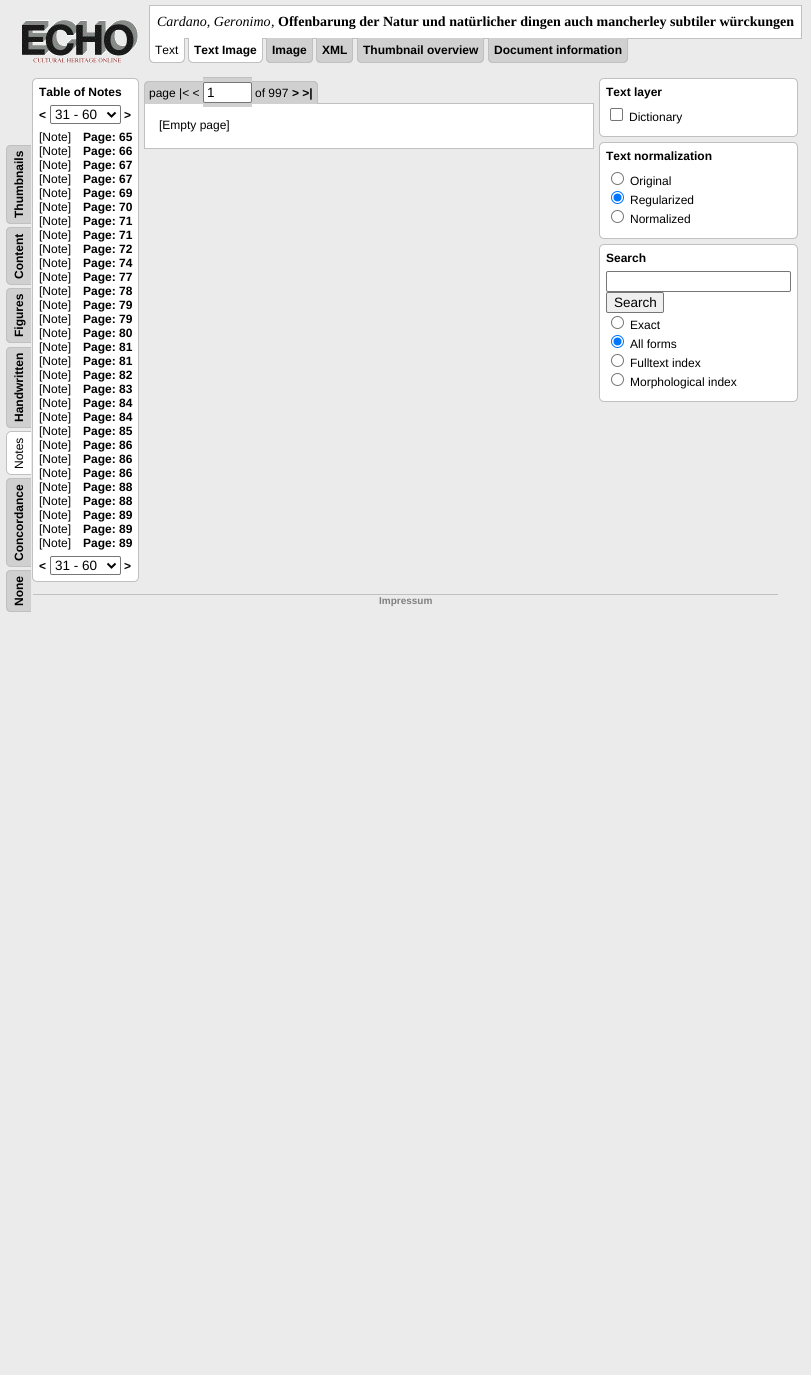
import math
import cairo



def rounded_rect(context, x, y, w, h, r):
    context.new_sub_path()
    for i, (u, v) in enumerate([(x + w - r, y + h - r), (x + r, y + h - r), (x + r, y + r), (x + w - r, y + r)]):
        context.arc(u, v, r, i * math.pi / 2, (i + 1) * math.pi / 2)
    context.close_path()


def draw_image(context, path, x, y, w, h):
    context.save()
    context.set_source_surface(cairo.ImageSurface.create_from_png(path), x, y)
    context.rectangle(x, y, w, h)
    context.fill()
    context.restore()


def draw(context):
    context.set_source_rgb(235 / 255, 235 / 255, 235 / 255)
    context.paint()
    draw_image(context, "images/1.png", 22, 20, 116, 43)
    context.set_source_rgb(1, 1, 1)
    context.rectangle(149.5, 5.5, 652, 33)
    context.fill_preserve()
    context.set_source_rgb(192 / 255, 192 / 255, 192 / 255)
    context.set_line_width(1)
    context.stroke()
    context.set_source_rgb(1, 1, 1)
    context.new_path()
    context.move_to(149, 38)
    context.line_to(185, 38)
    context.line_to(185, 58)
    context.curve_to(185, 61, 183, 63, 180, 63)
    context.line_to(154, 63)
    context.curve_to(151, 63, 149, 61, 149, 58)
    context.close_path()
    context.fill()
    context.set_source_rgb(192 / 255, 192 / 255, 192 / 255)
    context.set_fill_rule(cairo.FillRule.EVEN_ODD)
    context.new_path()
    context.move_to(149, 38)
    context.line_to(185, 38)
    context.line_to(185, 58)
    context.curve_to(185, 61, 183, 63, 180, 63)
    context.line_to(154, 63)
    context.curve_to(151, 63, 149, 61, 149, 58)
    context.close_path()
    context.move_to(150, 38)
    context.line_to(184, 38)
    context.line_to(184, 58)
    context.curve_to(184, 60, 182, 62, 180, 62)
    context.line_to(154, 62)
    context.curve_to(152, 62, 150, 60, 150, 58)
    context.close_path()
    context.fill()
    context.set_source_rgb(1, 1, 1)
    context.new_path()
    context.move_to(188, 38)
    context.line_to(263, 38)
    context.line_to(263, 58)
    context.curve_to(263, 61, 261, 63, 258, 63)
    context.line_to(193, 63)
    context.curve_to(190, 63, 188, 61, 188, 58)
    context.close_path()
    context.fill()
    context.set_source_rgb(192 / 255, 192 / 255, 192 / 255)
    context.new_path()
    context.move_to(188, 38)
    context.line_to(263, 38)
    context.line_to(263, 58)
    context.curve_to(263, 61, 261, 63, 258, 63)
    context.line_to(193, 63)
    context.curve_to(190, 63, 188, 61, 188, 58)
    context.close_path()
    context.move_to(189, 38)
    context.line_to(262, 38)
    context.line_to(262, 58)
    context.curve_to(262, 60, 260, 62, 258, 62)
    context.line_to(193, 62)
    context.curve_to(191, 62, 189, 60, 189, 58)
    context.close_path()
    context.fill()
    context.set_source_rgb(208 / 255, 208 / 255, 208 / 255)
    context.new_path()
    context.move_to(266, 38)
    context.line_to(313, 38)
    context.line_to(313, 58)
    context.curve_to(313, 61, 311, 63, 308, 63)
    context.line_to(271, 63)
    context.curve_to(268, 63, 266, 61, 266, 58)
    context.close_path()
    context.fill()
    context.set_source_rgb(192 / 255, 192 / 255, 192 / 255)
    context.new_path()
    context.move_to(266, 38)
    context.line_to(313, 38)
    context.line_to(313, 58)
    context.curve_to(313, 61, 311, 63, 308, 63)
    context.line_to(271, 63)
    context.curve_to(268, 63, 266, 61, 266, 58)
    context.close_path()
    context.move_to(267, 38)
    context.line_to(312, 38)
    context.line_to(312, 58)
    context.curve_to(312, 60, 310, 62, 308, 62)
    context.line_to(271, 62)
    context.curve_to(269, 62, 267, 60, 267, 58)
    context.close_path()
    context.fill()
    context.set_source_rgb(208 / 255, 208 / 255, 208 / 255)
    context.new_path()
    context.move_to(316, 38)
    context.line_to(353, 38)
    context.line_to(353, 58)
    context.curve_to(353, 61, 351, 63, 348, 63)
    context.line_to(321, 63)
    context.curve_to(318, 63, 316, 61, 316, 58)
    context.close_path()
    context.fill()
    context.set_source_rgb(192 / 255, 192 / 255, 192 / 255)
    context.new_path()
    context.move_to(316, 38)
    context.line_to(353, 38)
    context.line_to(353, 58)
    context.curve_to(353, 61, 351, 63, 348, 63)
    context.line_to(321, 63)
    context.curve_to(318, 63, 316, 61, 316, 58)
    context.close_path()
    context.move_to(317, 38)
    context.line_to(352, 38)
    context.line_to(352, 58)
    context.curve_to(352, 60, 350, 62, 348, 62)
    context.line_to(321, 62)
    context.curve_to(319, 62, 317, 60, 317, 58)
    context.close_path()
    context.fill()
    context.set_source_rgb(208 / 255, 208 / 255, 208 / 255)
    context.new_path()
    context.move_to(357, 38)
    context.line_to(484, 38)
    context.line_to(484, 58)
    context.curve_to(484, 61, 482, 63, 479, 63)
    context.line_to(362, 63)
    context.curve_to(359, 63, 357, 61, 357, 58)
    context.close_path()
    context.fill()
    context.set_source_rgb(192 / 255, 192 / 255, 192 / 255)
    context.new_path()
    context.move_to(357, 38)
    context.line_to(484, 38)
    context.line_to(484, 58)
    context.curve_to(484, 61, 482, 63, 479, 63)
    context.line_to(362, 63)
    context.curve_to(359, 63, 357, 61, 357, 58)
    context.close_path()
    context.move_to(358, 38)
    context.line_to(483, 38)
    context.line_to(483, 58)
    context.curve_to(483, 60, 481, 62, 479, 62)
    context.line_to(362, 62)
    context.curve_to(360, 62, 358, 60, 358, 58)
    context.close_path()
    context.fill()
    context.set_source_rgb(208 / 255, 208 / 255, 208 / 255)
    context.new_path()
    context.move_to(488, 38)
    context.line_to(628, 38)
    context.line_to(628, 58)
    context.curve_to(628, 61, 626, 63, 623, 63)
    context.line_to(493, 63)
    context.curve_to(490, 63, 488, 61, 488, 58)
    context.close_path()
    context.fill()
    context.set_source_rgb(192 / 255, 192 / 255, 192 / 255)
    context.new_path()
    context.move_to(488, 38)
    context.line_to(628, 38)
    context.line_to(628, 58)
    context.curve_to(628, 61, 626, 63, 623, 63)
    context.line_to(493, 63)
    context.curve_to(490, 63, 488, 61, 488, 58)
    context.close_path()
    context.move_to(489, 38)
    context.line_to(627, 38)
    context.line_to(627, 58)
    context.curve_to(627, 60, 625, 62, 623, 62)
    context.line_to(493, 62)
    context.curve_to(491, 62, 489, 60, 489, 58)
    context.close_path()
    context.fill()
    context.set_source_rgb(208 / 255, 208 / 255, 208 / 255)
    context.set_fill_rule(cairo.FillRule.WINDING)
    context.new_path()
    context.move_to(6, 219)
    context.line_to(6, 150)
    context.curve_to(6, 147, 8, 145, 11, 145)
    context.line_to(31, 145)
    context.line_to(31, 224)
    context.line_to(11, 224)
    context.curve_to(8, 224, 6, 222, 6, 219)
    context.close_path()
    context.fill()
    context.set_source_rgb(192 / 255, 192 / 255, 192 / 255)
    context.set_fill_rule(cairo.FillRule.EVEN_ODD)
    context.new_path()
    context.move_to(6, 219)
    context.line_to(6, 150)
    context.curve_to(6, 147, 8, 145, 11, 145)
    context.line_to(31, 145)
    context.line_to(31, 224)
    context.line_to(11, 224)
    context.curve_to(8, 224, 6, 222, 6, 219)
    context.close_path()
    context.move_to(7, 219)
    context.line_to(7, 150)
    context.curve_to(7, 147, 9, 146, 11, 146)
    context.line_to(31, 146)
    context.line_to(31, 223)
    context.line_to(11, 223)
    context.curve_to(9, 223, 7, 221, 7, 219)
    context.close_path()
    context.fill()
    context.set_source_rgb(208 / 255, 208 / 255, 208 / 255)
    context.set_fill_rule(cairo.FillRule.WINDING)
    context.new_path()
    context.move_to(6, 280)
    context.line_to(6, 232)
    context.curve_to(6, 229, 8, 227, 11, 227)
    context.line_to(31, 227)
    context.line_to(31, 285)
    context.line_to(11, 285)
    context.curve_to(8, 285, 6, 282, 6, 280)
    context.close_path()
    context.fill()
    context.set_source_rgb(192 / 255, 192 / 255, 192 / 255)
    context.set_fill_rule(cairo.FillRule.EVEN_ODD)
    context.new_path()
    context.move_to(6, 280)
    context.line_to(6, 232)
    context.curve_to(6, 229, 8, 227, 11, 227)
    context.line_to(31, 227)
    context.line_to(31, 285)
    context.line_to(11, 285)
    context.curve_to(8, 285, 6, 282, 6, 280)
    context.close_path()
    context.move_to(7, 280)
    context.line_to(7, 232)
    context.curve_to(7, 230, 9, 228, 11, 228)
    context.line_to(31, 228)
    context.line_to(31, 284)
    context.line_to(11, 284)
    context.curve_to(9, 284, 7, 282, 7, 280)
    context.close_path()
    context.fill()
    context.set_source_rgb(208 / 255, 208 / 255, 208 / 255)
    context.set_fill_rule(cairo.FillRule.WINDING)
    context.new_path()
    context.move_to(6, 338)
    context.line_to(6, 293)
    context.curve_to(6, 290, 8, 288, 11, 288)
    context.line_to(31, 288)
    context.line_to(31, 343)
    context.line_to(11, 343)
    context.curve_to(8, 343, 6, 341, 6, 338)
    context.close_path()
    context.fill()
    context.set_source_rgb(192 / 255, 192 / 255, 192 / 255)
    context.set_fill_rule(cairo.FillRule.EVEN_ODD)
    context.new_path()
    context.move_to(6, 338)
    context.line_to(6, 293)
    context.curve_to(6, 290, 8, 288, 11, 288)
    context.line_to(31, 288)
    context.line_to(31, 343)
    context.line_to(11, 343)
    context.curve_to(8, 343, 6, 341, 6, 338)
    context.close_path()
    context.move_to(7, 338)
    context.line_to(7, 293)
    context.curve_to(7, 291, 9, 289, 11, 289)
    context.line_to(31, 289)
    context.line_to(31, 342)
    context.line_to(11, 342)
    context.curve_to(9, 342, 7, 340, 7, 338)
    context.close_path()
    context.fill()
    context.set_source_rgb(208 / 255, 208 / 255, 208 / 255)
    context.set_fill_rule(cairo.FillRule.WINDING)
    context.new_path()
    context.move_to(6, 423)
    context.line_to(6, 352)
    context.curve_to(6, 349, 8, 347, 11, 347)
    context.line_to(31, 347)
    context.line_to(31, 428)
    context.line_to(11, 428)
    context.curve_to(8, 428, 6, 426, 6, 423)
    context.close_path()
    context.fill()
    context.set_source_rgb(192 / 255, 192 / 255, 192 / 255)
    context.set_fill_rule(cairo.FillRule.EVEN_ODD)
    context.new_path()
    context.move_to(6, 423)
    context.line_to(6, 352)
    context.curve_to(6, 349, 8, 347, 11, 347)
    context.line_to(31, 347)
    context.line_to(31, 428)
    context.line_to(11, 428)
    context.curve_to(8, 428, 6, 426, 6, 423)
    context.close_path()
    context.move_to(7, 423)
    context.line_to(7, 352)
    context.curve_to(7, 349, 9, 348, 11, 348)
    context.line_to(31, 348)
    context.line_to(31, 427)
    context.line_to(11, 427)
    context.curve_to(9, 427, 7, 425, 7, 423)
    context.close_path()
    context.fill()
    context.set_source_rgb(1, 1, 1)
    context.set_fill_rule(cairo.FillRule.WINDING)
    context.new_path()
    context.move_to(6, 470)
    context.line_to(6, 436)
    context.curve_to(6, 434, 8, 431, 11, 431)
    context.line_to(31, 431)
    context.line_to(31, 475)
    context.line_to(11, 475)
    context.curve_to(8, 475, 6, 472, 6, 470)
    context.close_path()
    context.fill()
    context.set_source_rgb(192 / 255, 192 / 255, 192 / 255)
    context.set_fill_rule(cairo.FillRule.EVEN_ODD)
    context.new_path()
    context.move_to(6, 470)
    context.line_to(6, 436)
    context.curve_to(6, 434, 8, 431, 11, 431)
    context.line_to(31, 431)
    context.line_to(31, 475)
    context.line_to(11, 475)
    context.curve_to(8, 475, 6, 472, 6, 470)
    context.close_path()
    context.move_to(7, 470)
    context.line_to(7, 436)
    context.curve_to(7, 434, 9, 432, 11, 432)
    context.line_to(31, 432)
    context.line_to(31, 474)
    context.line_to(11, 474)
    context.curve_to(9, 474, 7, 472, 7, 470)
    context.close_path()
    context.fill()
    context.set_source_rgb(208 / 255, 208 / 255, 208 / 255)
    context.set_fill_rule(cairo.FillRule.WINDING)
    context.new_path()
    context.move_to(6, 562)
    context.line_to(6, 483)
    context.curve_to(6, 480, 8, 478, 11, 478)
    context.line_to(31, 478)
    context.line_to(31, 567)
    context.line_to(11, 567)
    context.curve_to(8, 567, 6, 564, 6, 562)
    context.close_path()
    context.fill()
    context.set_source_rgb(192 / 255, 192 / 255, 192 / 255)
    context.set_fill_rule(cairo.FillRule.EVEN_ODD)
    context.new_path()
    context.move_to(6, 562)
    context.line_to(6, 483)
    context.curve_to(6, 480, 8, 478, 11, 478)
    context.line_to(31, 478)
    context.line_to(31, 567)
    context.line_to(11, 567)
    context.curve_to(8, 567, 6, 564, 6, 562)
    context.close_path()
    context.move_to(7, 562)
    context.line_to(7, 483)
    context.curve_to(7, 481, 9, 479, 11, 479)
    context.line_to(31, 479)
    context.line_to(31, 566)
    context.line_to(11, 566)
    context.curve_to(9, 566, 7, 564, 7, 562)
    context.close_path()
    context.fill()
    context.set_source_rgb(208 / 255, 208 / 255, 208 / 255)
    context.set_fill_rule(cairo.FillRule.WINDING)
    context.new_path()
    context.move_to(6, 607)
    context.line_to(6, 575)
    context.curve_to(6, 572, 8, 570, 11, 570)
    context.line_to(31, 570)
    context.line_to(31, 612)
    context.line_to(11, 612)
    context.curve_to(8, 612, 6, 610, 6, 607)
    context.close_path()
    context.fill()
    context.set_source_rgb(192 / 255, 192 / 255, 192 / 255)
    context.set_fill_rule(cairo.FillRule.EVEN_ODD)
    context.new_path()
    context.move_to(6, 607)
    context.line_to(6, 575)
    context.curve_to(6, 572, 8, 570, 11, 570)
    context.line_to(31, 570)
    context.line_to(31, 612)
    context.line_to(11, 612)
    context.curve_to(8, 612, 6, 610, 6, 607)
    context.close_path()
    context.move_to(7, 607)
    context.line_to(7, 575)
    context.curve_to(7, 573, 9, 571, 11, 571)
    context.line_to(31, 571)
    context.line_to(31, 611)
    context.line_to(11, 611)
    context.curve_to(9, 611, 7, 609, 7, 607)
    context.close_path()
    context.fill()
    context.set_source_rgb(1, 1, 1)
    rounded_rect(context, 32.5, 78.5, 106, 503, 4.5)
    context.fill_preserve()
    context.set_source_rgb(192 / 255, 192 / 255, 192 / 255)
    context.stroke()
    rounded_rect(context, 50.5, 105.5, 70, 18, 1.5)
    context.set_source_rgb(118 / 255, 118 / 255, 118 / 255)
    context.stroke()
    context.new_path()
    context.move_to(107.5, 112.5)
    context.line_to(111.5, 116.5)
    context.line_to(115.5, 112.5)
    context.set_source_rgb(0, 0, 0)
    context.set_line_width(2)
    context.stroke()
    rounded_rect(context, 50.5, 556.5, 70, 18, 1.5)
    context.set_source_rgb(118 / 255, 118 / 255, 118 / 255)
    context.set_line_width(1)
    context.stroke()
    context.new_path()
    context.move_to(107.5, 563.5)
    context.line_to(111.5, 567.5)
    context.line_to(115.5, 563.5)
    context.set_source_rgb(0, 0, 0)
    context.set_line_width(2)
    context.stroke()
    context.set_source_rgb(1, 1, 1)
    context.rectangle(144.5, 103.5, 449, 45)
    context.fill_preserve()
    context.set_source_rgb(192 / 255, 192 / 255, 192 / 255)
    context.set_line_width(1)
    context.stroke()
    context.set_source_rgb(208 / 255, 208 / 255, 208 / 255)
    context.new_path()
    context.move_to(149, 81)
    context.line_to(179, 81)
    context.line_to(179, 104)
    context.line_to(144, 104)
    context.line_to(144, 86)
    context.curve_to(144, 83, 146, 81, 149, 81)
    context.close_path()
    context.fill()
    context.set_source_rgb(192 / 255, 192 / 255, 192 / 255)
    context.new_path()
    context.move_to(149, 81)
    context.line_to(179, 81)
    context.line_to(179, 104)
    context.line_to(144, 104)
    context.line_to(144, 86)
    context.curve_to(144, 83, 146, 81, 149, 81)
    context.close_path()
    context.move_to(149, 82)
    context.line_to(179, 82)
    context.line_to(179, 104)
    context.line_to(145, 104)
    context.line_to(145, 86)
    context.curve_to(145, 84, 147, 82, 149, 82)
    context.close_path()
    context.fill()
    context.set_source_rgb(208 / 255, 208 / 255, 208 / 255)
    context.rectangle(179, 82, 10, 22)
    context.fill()
    context.set_source_rgb(192 / 255, 192 / 255, 192 / 255)
    context.rectangle(179, 81, 10, 1)
    context.fill()
    context.set_source_rgb(208 / 255, 208 / 255, 208 / 255)
    context.rectangle(189, 81, 14, 23)
    context.fill()
    context.set_source_rgb(192 / 255, 192 / 255, 192 / 255)
    context.rectangle(189, 81, 14, 1)
    context.fill()
    context.set_source_rgb(208 / 255, 208 / 255, 208 / 255)
    context.rectangle(203, 78, 49, 29)
    context.fill()
    context.set_source_rgb(192 / 255, 192 / 255, 192 / 255)
    context.rectangle(203, 77, 49, 1)
    context.fill()
    context.set_source_rgb(208 / 255, 208 / 255, 208 / 255)
    context.rectangle(252, 81, 3, 23)
    context.fill()
    context.set_source_rgb(192 / 255, 192 / 255, 192 / 255)
    context.rectangle(252, 81, 40, 1)
    context.fill()
    context.set_source_rgb(208 / 255, 208 / 255, 208 / 255)
    context.rectangle(255, 82, 37, 22)
    context.fill()
    context.rectangle(292, 81, 10, 23)
    context.fill()
    context.set_source_rgb(192 / 255, 192 / 255, 192 / 255)
    context.rectangle(292, 81, 10, 1)
    context.fill()
    context.set_source_rgb(208 / 255, 208 / 255, 208 / 255)
    context.new_path()
    context.move_to(302, 81)
    context.line_to(313, 81)
    context.curve_to(316, 81, 318, 83, 318, 86)
    context.line_to(318, 104)
    context.line_to(302, 104)
    context.close_path()
    context.fill()
    context.set_source_rgb(192 / 255, 192 / 255, 192 / 255)
    context.new_path()
    context.move_to(302, 81)
    context.line_to(313, 81)
    context.curve_to(316, 81, 318, 83, 318, 86)
    context.line_to(318, 104)
    context.line_to(302, 104)
    context.close_path()
    context.move_to(302, 82)
    context.line_to(313, 82)
    context.curve_to(315, 82, 317, 84, 317, 86)
    context.line_to(317, 104)
    context.line_to(302, 104)
    context.close_path()
    context.fill()
    context.set_source_rgb(1, 1, 1)
    rounded_rect(context, 203.5, 82.5, 48, 20, 1.5)
    context.fill_preserve()
    context.set_source_rgb(118 / 255, 118 / 255, 118 / 255)
    context.stroke()
    context.set_source_rgb(1, 1, 1)
    rounded_rect(context, 599.5, 78.5, 198, 58, 4.5)
    context.fill_preserve()
    context.set_source_rgb(192 / 255, 192 / 255, 192 / 255)
    context.stroke()
    rounded_rect(context, 610.5, 108.5, 12, 12, 1.5)
    context.set_source_rgb(118 / 255, 118 / 255, 118 / 255)
    context.stroke()
    context.set_source_rgb(1, 1, 1)
    rounded_rect(context, 599.5, 142.5, 198, 96, 4.5)
    context.fill_preserve()
    context.set_source_rgb(192 / 255, 192 / 255, 192 / 255)
    context.stroke()
    context.arc(617.5, 178.5, 6, 0, 2 * math.pi)
    context.set_source_rgb(118 / 255, 118 / 255, 118 / 255)
    context.stroke()
    context.arc(617.5, 197.5, 6, 0, 2 * math.pi)
    context.set_source_rgb(0, 117 / 255, 1)
    context.stroke()
    context.arc(617.5, 197.5, 4, 0, 2 * math.pi)
    context.fill()
    context.arc(617.5, 216.5, 6, 0, 2 * math.pi)
    context.set_source_rgb(118 / 255, 118 / 255, 118 / 255)
    context.stroke()
    context.set_source_rgb(1, 1, 1)
    rounded_rect(context, 599.5, 244.5, 198, 157, 4.5)
    context.fill_preserve()
    context.set_source_rgb(192 / 255, 192 / 255, 192 / 255)
    context.stroke()
    rounded_rect(context, 606.5, 271.5, 184, 20, 1.5)
    context.set_source_rgb(118 / 255, 118 / 255, 118 / 255)
    context.stroke()
    context.set_source_rgb(239 / 255, 239 / 255, 239 / 255)
    rounded_rect(context, 606.5, 292.5, 57, 20, 1.5)
    context.fill_preserve()
    context.set_source_rgb(118 / 255, 118 / 255, 118 / 255)
    context.stroke()
    context.arc(617.5, 322.5, 6, 0, 2 * math.pi)
    context.stroke()
    context.arc(617.5, 341.5, 6, 0, 2 * math.pi)
    context.set_source_rgb(0, 117 / 255, 1)
    context.stroke()
    context.arc(617.5, 341.5, 4, 0, 2 * math.pi)
    context.fill()
    context.arc(617.5, 360.5, 6, 0, 2 * math.pi)
    context.set_source_rgb(118 / 255, 118 / 255, 118 / 255)
    context.stroke()
    context.arc(617.5, 379.5, 6, 0, 2 * math.pi)
    context.stroke()
    context.set_source_rgb(192 / 255, 192 / 255, 192 / 255)
    context.rectangle(33, 594, 745, 1)
    context.fill()
    context.select_font_face("Liberation Serif", cairo.FontSlant.ITALIC)
    context.set_font_size(14)
    context.set_source_rgb(0, 0, 0)
    context.move_to(157, 26)
    context.show_text("Cardano, Geronimo")
    context.select_font_face("Liberation Serif")
    context.move_to(271, 26)
    context.show_text(",")
    context.select_font_face("Liberation Serif", cairo.FontSlant.NORMAL, cairo.FontWeight.BOLD)
    context.move_to(278, 26)
    context.show_text("Offenbarung der Natur und natürlicher dingen auch mancherley subtiler würckungen")
    context.select_font_face("Liberation Sans")
    context.set_font_size(12)
    context.move_to(155, 54)
    context.show_text("Text")
    context.select_font_face("Liberation Sans", cairo.FontSlant.NORMAL, cairo.FontWeight.BOLD)
    context.move_to(194, 54)
    context.show_text("Text Image")
    context.move_to(272, 54)
    context.show_text("Image")
    context.move_to(322, 54)
    context.show_text("XML")
    context.move_to(363, 54)
    context.show_text("Thumbnail overview")
    context.move_to(494, 54)
    context.show_text("Document information")
    context.save()
    context.translate(23, 218)
    context.rotate(-90 * math.pi / 180)
    context.move_to(0, 0)
    context.show_text("Thumbnails")
    context.restore()
    context.save()
    context.translate(23, 279)
    context.rotate(-90 * math.pi / 180)
    context.move_to(0, 0)
    context.show_text("Content")
    context.restore()
    context.save()
    context.translate(23, 337)
    context.rotate(-90 * math.pi / 180)
    context.move_to(0, 0)
    context.show_text("Figures")
    context.restore()
    context.save()
    context.translate(23, 422)
    context.rotate(-90 * math.pi / 180)
    context.move_to(0, 0)
    context.show_text("Handwritten")
    context.restore()
    context.select_font_face("Liberation Sans")
    context.save()
    context.translate(23, 469)
    context.rotate(-90 * math.pi / 180)
    context.move_to(0, 0)
    context.show_text("Notes")
    context.restore()
    context.select_font_face("Liberation Sans", cairo.FontSlant.NORMAL, cairo.FontWeight.BOLD)
    context.save()
    context.translate(23, 561)
    context.rotate(-90 * math.pi / 180)
    context.move_to(0, 0)
    context.show_text("Concordance")
    context.restore()
    context.save()
    context.translate(23, 606)
    context.rotate(-90 * math.pi / 180)
    context.move_to(0, 0)
    context.show_text("None")
    context.restore()
    context.move_to(39, 96)
    context.show_text("Table of Notes")
    context.move_to(39, 119)
    context.show_text("<")
    context.select_font_face("Liberation Sans")
    context.set_font_size(13.5)
    context.move_to(55, 119)
    context.show_text("31 - 60")
    context.select_font_face("Liberation Sans", cairo.FontSlant.NORMAL, cairo.FontWeight.BOLD)
    context.set_font_size(12)
    context.move_to(124, 119)
    context.show_text(">")
    context.select_font_face("Liberation Sans")
    context.move_to(39, 141)
    context.show_text("[Note]")
    context.select_font_face("Liberation Sans", cairo.FontSlant.NORMAL, cairo.FontWeight.BOLD)
    context.move_to(83, 141)
    context.show_text("Page: 65")
    context.select_font_face("Liberation Sans")
    context.move_to(39, 155)
    context.show_text("[Note]")
    context.select_font_face("Liberation Sans", cairo.FontSlant.NORMAL, cairo.FontWeight.BOLD)
    context.move_to(83, 155)
    context.show_text("Page: 66")
    context.select_font_face("Liberation Sans")
    context.move_to(39, 169)
    context.show_text("[Note]")
    context.select_font_face("Liberation Sans", cairo.FontSlant.NORMAL, cairo.FontWeight.BOLD)
    context.move_to(83, 169)
    context.show_text("Page: 67")
    context.select_font_face("Liberation Sans")
    context.move_to(39, 183)
    context.show_text("[Note]")
    context.select_font_face("Liberation Sans", cairo.FontSlant.NORMAL, cairo.FontWeight.BOLD)
    context.move_to(83, 183)
    context.show_text("Page: 67")
    context.select_font_face("Liberation Sans")
    context.move_to(39, 197)
    context.show_text("[Note]")
    context.select_font_face("Liberation Sans", cairo.FontSlant.NORMAL, cairo.FontWeight.BOLD)
    context.move_to(83, 197)
    context.show_text("Page: 69")
    context.select_font_face("Liberation Sans")
    context.move_to(39, 211)
    context.show_text("[Note]")
    context.select_font_face("Liberation Sans", cairo.FontSlant.NORMAL, cairo.FontWeight.BOLD)
    context.move_to(83, 211)
    context.show_text("Page: 70")
    context.select_font_face("Liberation Sans")
    context.move_to(39, 225)
    context.show_text("[Note]")
    context.select_font_face("Liberation Sans", cairo.FontSlant.NORMAL, cairo.FontWeight.BOLD)
    context.move_to(83, 225)
    context.show_text("Page: 71")
    context.select_font_face("Liberation Sans")
    context.move_to(39, 239)
    context.show_text("[Note]")
    context.select_font_face("Liberation Sans", cairo.FontSlant.NORMAL, cairo.FontWeight.BOLD)
    context.move_to(83, 239)
    context.show_text("Page: 71")
    context.select_font_face("Liberation Sans")
    context.move_to(39, 253)
    context.show_text("[Note]")
    context.select_font_face("Liberation Sans", cairo.FontSlant.NORMAL, cairo.FontWeight.BOLD)
    context.move_to(83, 253)
    context.show_text("Page: 72")
    context.select_font_face("Liberation Sans")
    context.move_to(39, 267)
    context.show_text("[Note]")
    context.select_font_face("Liberation Sans", cairo.FontSlant.NORMAL, cairo.FontWeight.BOLD)
    context.move_to(83, 267)
    context.show_text("Page: 74")
    context.select_font_face("Liberation Sans")
    context.move_to(39, 281)
    context.show_text("[Note]")
    context.select_font_face("Liberation Sans", cairo.FontSlant.NORMAL, cairo.FontWeight.BOLD)
    context.move_to(83, 281)
    context.show_text("Page: 77")
    context.select_font_face("Liberation Sans")
    context.move_to(39, 295)
    context.show_text("[Note]")
    context.select_font_face("Liberation Sans", cairo.FontSlant.NORMAL, cairo.FontWeight.BOLD)
    context.move_to(83, 295)
    context.show_text("Page: 78")
    context.select_font_face("Liberation Sans")
    context.move_to(39, 309)
    context.show_text("[Note]")
    context.select_font_face("Liberation Sans", cairo.FontSlant.NORMAL, cairo.FontWeight.BOLD)
    context.move_to(83, 309)
    context.show_text("Page: 79")
    context.select_font_face("Liberation Sans")
    context.move_to(39, 323)
    context.show_text("[Note]")
    context.select_font_face("Liberation Sans", cairo.FontSlant.NORMAL, cairo.FontWeight.BOLD)
    context.move_to(83, 323)
    context.show_text("Page: 79")
    context.select_font_face("Liberation Sans")
    context.move_to(39, 337)
    context.show_text("[Note]")
    context.select_font_face("Liberation Sans", cairo.FontSlant.NORMAL, cairo.FontWeight.BOLD)
    context.move_to(83, 337)
    context.show_text("Page: 80")
    context.select_font_face("Liberation Sans")
    context.move_to(39, 351)
    context.show_text("[Note]")
    context.select_font_face("Liberation Sans", cairo.FontSlant.NORMAL, cairo.FontWeight.BOLD)
    context.move_to(83, 351)
    context.show_text("Page: 81")
    context.select_font_face("Liberation Sans")
    context.move_to(39, 365)
    context.show_text("[Note]")
    context.select_font_face("Liberation Sans", cairo.FontSlant.NORMAL, cairo.FontWeight.BOLD)
    context.move_to(83, 365)
    context.show_text("Page: 81")
    context.select_font_face("Liberation Sans")
    context.move_to(39, 379)
    context.show_text("[Note]")
    context.select_font_face("Liberation Sans", cairo.FontSlant.NORMAL, cairo.FontWeight.BOLD)
    context.move_to(83, 379)
    context.show_text("Page: 82")
    context.select_font_face("Liberation Sans")
    context.move_to(39, 393)
    context.show_text("[Note]")
    context.select_font_face("Liberation Sans", cairo.FontSlant.NORMAL, cairo.FontWeight.BOLD)
    context.move_to(83, 393)
    context.show_text("Page: 83")
    context.select_font_face("Liberation Sans")
    context.move_to(39, 407)
    context.show_text("[Note]")
    context.select_font_face("Liberation Sans", cairo.FontSlant.NORMAL, cairo.FontWeight.BOLD)
    context.move_to(83, 407)
    context.show_text("Page: 84")
    context.select_font_face("Liberation Sans")
    context.move_to(39, 421)
    context.show_text("[Note]")
    context.select_font_face("Liberation Sans", cairo.FontSlant.NORMAL, cairo.FontWeight.BOLD)
    context.move_to(83, 421)
    context.show_text("Page: 84")
    context.select_font_face("Liberation Sans")
    context.move_to(39, 435)
    context.show_text("[Note]")
    context.select_font_face("Liberation Sans", cairo.FontSlant.NORMAL, cairo.FontWeight.BOLD)
    context.move_to(83, 435)
    context.show_text("Page: 85")
    context.select_font_face("Liberation Sans")
    context.move_to(39, 449)
    context.show_text("[Note]")
    context.select_font_face("Liberation Sans", cairo.FontSlant.NORMAL, cairo.FontWeight.BOLD)
    context.move_to(83, 449)
    context.show_text("Page: 86")
    context.select_font_face("Liberation Sans")
    context.move_to(39, 463)
    context.show_text("[Note]")
    context.select_font_face("Liberation Sans", cairo.FontSlant.NORMAL, cairo.FontWeight.BOLD)
    context.move_to(83, 463)
    context.show_text("Page: 86")
    context.select_font_face("Liberation Sans")
    context.move_to(39, 477)
    context.show_text("[Note]")
    context.select_font_face("Liberation Sans", cairo.FontSlant.NORMAL, cairo.FontWeight.BOLD)
    context.move_to(83, 477)
    context.show_text("Page: 86")
    context.select_font_face("Liberation Sans")
    context.move_to(39, 491)
    context.show_text("[Note]")
    context.select_font_face("Liberation Sans", cairo.FontSlant.NORMAL, cairo.FontWeight.BOLD)
    context.move_to(83, 491)
    context.show_text("Page: 88")
    context.select_font_face("Liberation Sans")
    context.move_to(39, 505)
    context.show_text("[Note]")
    context.select_font_face("Liberation Sans", cairo.FontSlant.NORMAL, cairo.FontWeight.BOLD)
    context.move_to(83, 505)
    context.show_text("Page: 88")
    context.select_font_face("Liberation Sans")
    context.move_to(39, 519)
    context.show_text("[Note]")
    context.select_font_face("Liberation Sans", cairo.FontSlant.NORMAL, cairo.FontWeight.BOLD)
    context.move_to(83, 519)
    context.show_text("Page: 89")
    context.select_font_face("Liberation Sans")
    context.move_to(39, 533)
    context.show_text("[Note]")
    context.select_font_face("Liberation Sans", cairo.FontSlant.NORMAL, cairo.FontWeight.BOLD)
    context.move_to(83, 533)
    context.show_text("Page: 89")
    context.select_font_face("Liberation Sans")
    context.move_to(39, 547)
    context.show_text("[Note]")
    context.select_font_face("Liberation Sans", cairo.FontSlant.NORMAL, cairo.FontWeight.BOLD)
    context.move_to(83, 547)
    context.show_text("Page: 89")
    context.move_to(39, 570)
    context.show_text("<")
    context.select_font_face("Liberation Sans")
    context.set_font_size(13.5)
    context.move_to(55, 570)
    context.show_text("31 - 60")
    context.select_font_face("Liberation Sans", cairo.FontSlant.NORMAL, cairo.FontWeight.BOLD)
    context.set_font_size(12)
    context.move_to(124, 570)
    context.show_text(">")
    context.select_font_face("Liberation Sans")
    context.move_to(149, 97)
    context.show_text("page |< <")
    context.set_font_size(13.5)
    context.move_to(207, 97)
    context.show_text("1")
    context.set_font_size(12)
    context.move_to(255, 97)
    context.show_text("of 997")
    context.select_font_face("Liberation Sans", cairo.FontSlant.NORMAL, cairo.FontWeight.BOLD)
    context.move_to(292, 97)
    context.show_text("> >|")
    context.select_font_face("Liberation Sans")
    context.move_to(159, 129)
    context.show_text("[Empty page]")
    context.select_font_face("Liberation Sans", cairo.FontSlant.NORMAL, cairo.FontWeight.BOLD)
    context.move_to(606, 96)
    context.show_text("Text layer")
    context.select_font_face("Liberation Sans")
    context.move_to(629, 121)
    context.show_text("Dictionary")
    context.select_font_face("Liberation Sans", cairo.FontSlant.NORMAL, cairo.FontWeight.BOLD)
    context.move_to(606, 160)
    context.show_text("Text normalization")
    context.select_font_face("Liberation Sans")
    context.move_to(630, 185)
    context.show_text("Original")
    context.move_to(630, 204)
    context.show_text("Regularized")
    context.move_to(630, 223)
    context.show_text("Normalized")
    context.select_font_face("Liberation Sans", cairo.FontSlant.NORMAL, cairo.FontWeight.BOLD)
    context.move_to(606, 262)
    context.show_text("Search")
    context.select_font_face("Liberation Sans")
    context.set_font_size(13.5)
    context.move_to(614, 307)
    context.show_text("Search")
    context.set_font_size(12)
    context.move_to(630, 329)
    context.show_text("Exact")
    context.move_to(630, 348)
    context.show_text("All forms")
    context.move_to(630, 367)
    context.show_text("Fulltext index")
    context.move_to(630, 386)
    context.show_text("Morphological index")
    context.select_font_face("Liberation Sans", cairo.FontSlant.NORMAL, cairo.FontWeight.BOLD)
    context.set_font_size(10)
    context.set_source_rgb(128 / 255, 128 / 255, 128 / 255)
    context.move_to(379, 604)
    context.show_text("Impressum")


surface = cairo.ImageSurface(cairo.Format.RGB24, 811, 1375)
context = cairo.Context(surface)
options = cairo.FontOptions()
options.set_hint_metrics(cairo.HintMetrics.OFF)
options.set_hint_style(cairo.HintStyle.NONE)
context.set_font_options(options)
context.set_miter_limit(4)
draw(context)
surface.write_to_png("out.png")
